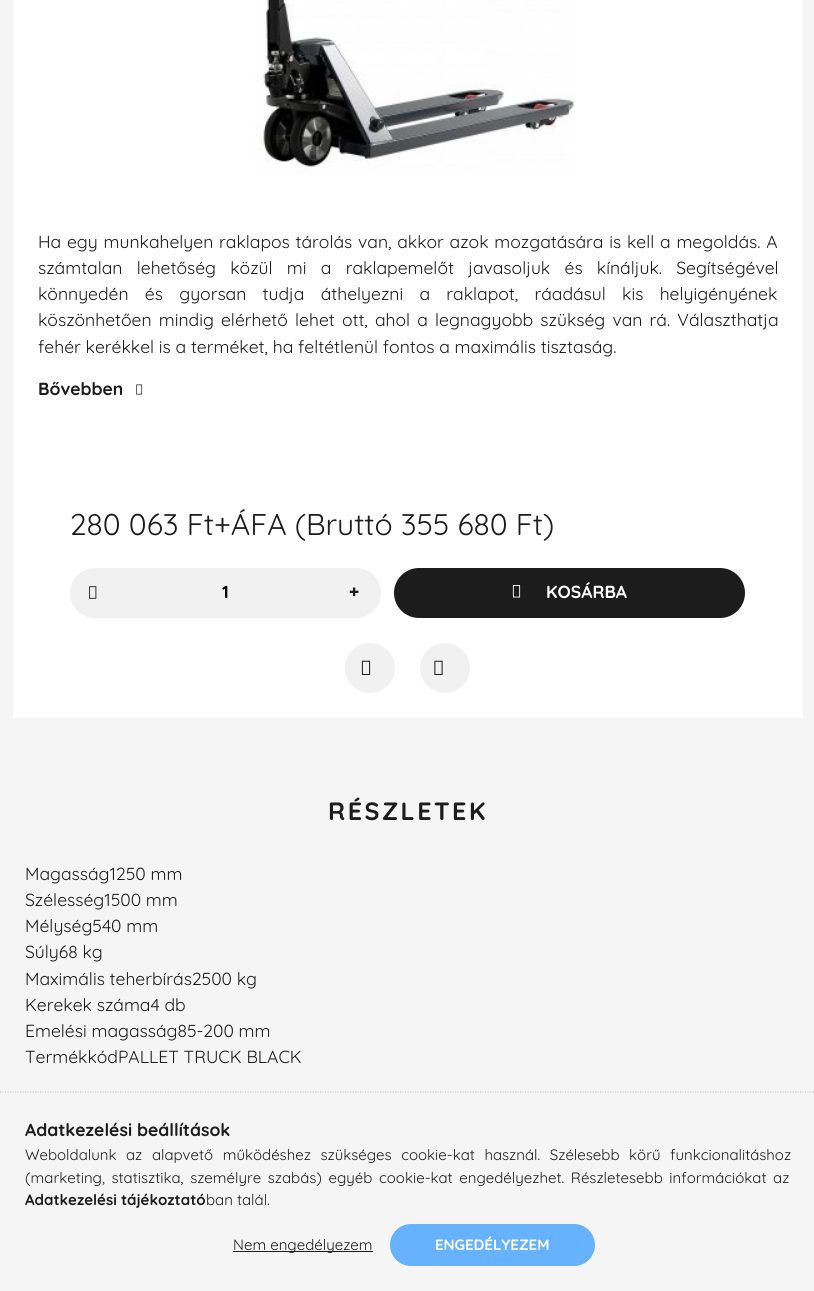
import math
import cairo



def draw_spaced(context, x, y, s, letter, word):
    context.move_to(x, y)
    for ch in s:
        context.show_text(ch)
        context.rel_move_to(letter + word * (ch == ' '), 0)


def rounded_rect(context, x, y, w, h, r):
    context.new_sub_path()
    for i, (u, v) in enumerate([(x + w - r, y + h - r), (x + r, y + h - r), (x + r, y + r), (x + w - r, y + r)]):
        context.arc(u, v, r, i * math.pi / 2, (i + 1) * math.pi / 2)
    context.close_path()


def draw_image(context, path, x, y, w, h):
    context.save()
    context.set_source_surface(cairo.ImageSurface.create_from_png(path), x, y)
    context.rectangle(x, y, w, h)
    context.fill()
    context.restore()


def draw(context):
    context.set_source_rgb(245 / 255, 245 / 255, 245 / 255)
    context.paint()
    context.set_source_rgb(1, 1, 1)
    context.rectangle(13, 0, 790, 718)
    context.fill()
    draw_image(context, "images/1.png", 255, 0, 320, 173)
    draw_image(context, "images/2.png", 136, 384, 7, 11)
    context.set_source_rgb(241 / 255, 241 / 255, 241 / 255)
    rounded_rect(context, 70, 568, 311, 50, 25)
    context.fill()
    draw_image(context, "images/3.png", 89, 586, 8, 13)
    context.set_source_rgb(28 / 255, 28 / 255, 28 / 255)
    rounded_rect(context, 394, 568, 351, 50, 25)
    context.fill()
    draw_image(context, "images/4.png", 512, 585, 9, 13)
    context.set_source_rgb(241 / 255, 241 / 255, 241 / 255)
    context.arc(370, 668, 25, 0, 2 * math.pi)
    context.fill()
    draw_image(context, "images/5.png", 361, 660, 10, 15)
    context.arc(445, 668, 25, 0, 2 * math.pi)
    context.fill()
    draw_image(context, "images/6.png", 434, 660, 9, 15)
    context.new_path()
    context.move_to(0, 1092)
    context.line_to(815, 1092)
    context.set_source_rgb(204 / 255, 204 / 255, 204 / 255)
    context.set_line_width(1.2)
    context.set_dash([1.25, 1.25])
    context.stroke()
    context.set_source_rgb(28 / 255, 28 / 255, 28 / 255)
    context.rectangle(233, 1251, 140, 1)
    context.fill()
    context.set_source_rgb(102 / 255, 178 / 255, 1)
    rounded_rect(context, 390, 1224, 205, 42, 21)
    context.fill()
    context.select_font_face("Quicksand")
    context.set_font_size(17.5)
    context.set_source_rgb(28 / 255, 28 / 255, 28 / 255)
    draw_spaced(context, 38, 248, "Ha egy munkahelyen raklapos tárolás van, akkor azok mozgatására is kell a megoldás. A", 0, 1)
    draw_spaced(context, 38, 274, "számtalan lehetőség közül mi a raklapemelőt javasoljuk és kínáljuk. Segítségével", 0, 9.5)
    draw_spaced(context, 38, 300, "könnyedén és gyorsan tudja áthelyezni a raklapot, ráadásul kis helyigényének", 0, 11.5)
    draw_spaced(context, 38, 326, "köszönhetően mindig elérhető lehet ott, ahol a legnagyobb szükség van rá. Választhatja", 0, 2.4)
    context.move_to(38, 353)
    context.show_text("fehér kerékkel is a terméket, ha feltétlenül fontos a maximális tisztaság.")
    context.select_font_face("Quicksand", cairo.FontSlant.NORMAL, cairo.FontWeight.BOLD)
    context.move_to(38, 395)
    context.show_text("Bővebben")
    context.select_font_face("Quicksand")
    context.set_font_size(30)
    context.move_to(70, 535)
    context.show_text("280 063 Ft+ÁFA (Bruttó 355 680 Ft)")
    context.select_font_face("Quicksand", cairo.FontSlant.NORMAL, cairo.FontWeight.BOLD)
    context.set_font_size(17.5)
    context.set_source_rgb(0, 0, 0)
    context.move_to(222, 598)
    context.show_text("1")
    context.select_font_face("Noto Sans Black")
    context.set_source_rgb(28 / 255, 28 / 255, 28 / 255)
    context.move_to(349, 598)
    context.show_text("+")
    context.select_font_face("Quicksand", cairo.FontSlant.NORMAL, cairo.FontWeight.BOLD)
    context.set_source_rgb(1, 1, 1)
    context.move_to(546, 598)
    context.show_text("KOSÁRBA")
    context.set_font_size(25)
    context.set_source_rgb(28 / 255, 28 / 255, 28 / 255)
    draw_spaced(context, 328, 820, "RÉSZLETEK", 2.5, 0)
    context.select_font_face("Quicksand")
    context.set_font_size(17.5)
    context.move_to(25, 880)
    context.show_text("Magasság1250 mm")
    context.move_to(25, 906)
    context.show_text("Szélesség1500 mm")
    context.move_to(25, 932)
    context.show_text("Mélység540 mm")
    context.move_to(25, 958)
    context.show_text("Súly68 kg")
    context.move_to(25, 985)
    context.show_text("Maximális teherbírás2500 kg")
    context.move_to(25, 1011)
    context.show_text("Kerekek száma4 db")
    context.move_to(25, 1037)
    context.show_text("Emelési magasság85-200 mm")
    context.move_to(25, 1063)
    context.show_text("TermékkódPALLET TRUCK BLACK")
    context.select_font_face("Quicksand", cairo.FontSlant.NORMAL, cairo.FontWeight.BOLD)
    context.move_to(25, 1136)
    context.show_text("Adatkezelési beállítások")
    context.select_font_face("Quicksand")
    context.set_font_size(15)
    draw_spaced(context, 25, 1160, "Weboldalunk az alapvető működéshez szükséges cookie-kat használ. Szélesebb körű funkcionalitáshoz", 0, 5.5)
    draw_spaced(context, 25, 1183, "(marketing, statisztika, személyre szabás) egyéb cookie-kat engedélyezhet. Részletesebb információkat az", 0, 2.5)
    context.select_font_face("Quicksand", cairo.FontSlant.NORMAL, cairo.FontWeight.BOLD)
    context.move_to(25, 1205)
    context.show_text("Adatkezelési tájékoztató")
    context.select_font_face("Quicksand")
    context.move_to(206, 1205)
    context.show_text("ban talál.")
    context.move_to(233, 1250)
    context.show_text("Nem engedélyezem")
    context.select_font_face("Quicksand", cairo.FontSlant.NORMAL, cairo.FontWeight.BOLD)
    context.set_source_rgb(1, 1, 1)
    context.move_to(435, 1250)
    context.show_text("ENGEDÉLYEZEM")


surface = cairo.ImageSurface(cairo.Format.RGB24, 814, 1291)
context = cairo.Context(surface)
options = cairo.FontOptions()
options.set_hint_metrics(cairo.HintMetrics.OFF)
options.set_hint_style(cairo.HintStyle.NONE)
context.set_font_options(options)
context.set_miter_limit(4)
draw(context)
surface.write_to_png("out.png")
